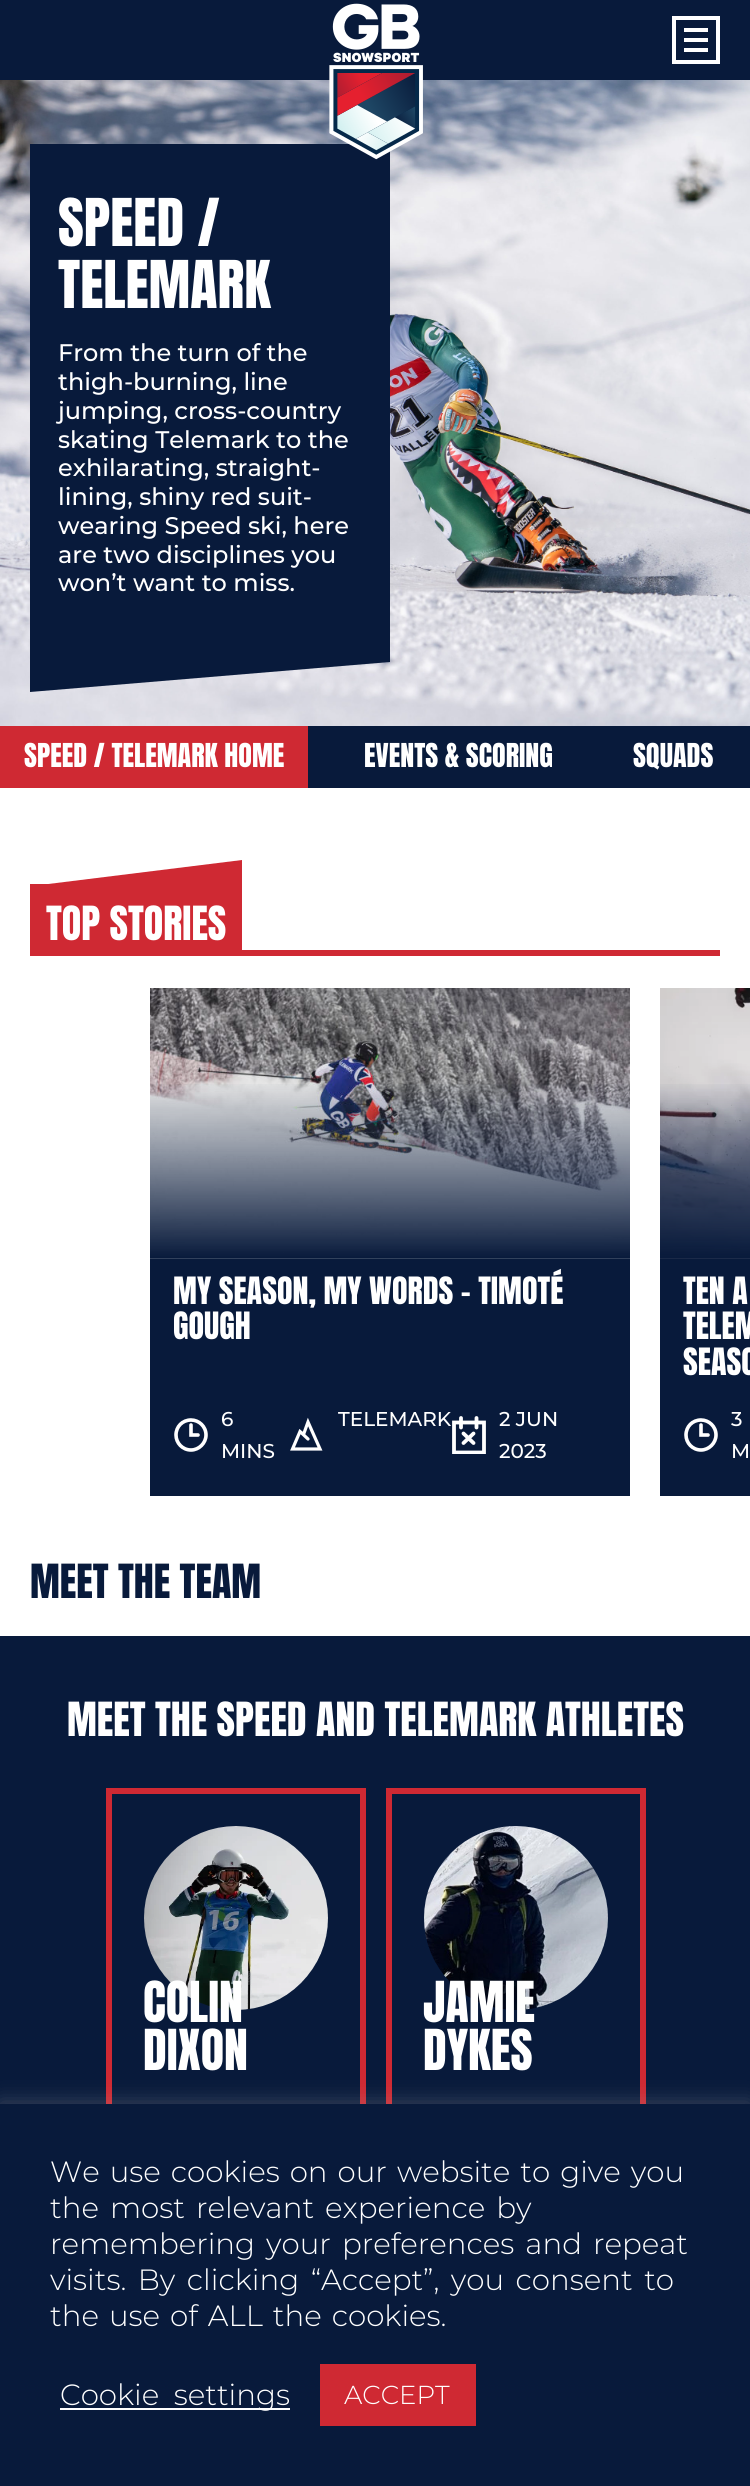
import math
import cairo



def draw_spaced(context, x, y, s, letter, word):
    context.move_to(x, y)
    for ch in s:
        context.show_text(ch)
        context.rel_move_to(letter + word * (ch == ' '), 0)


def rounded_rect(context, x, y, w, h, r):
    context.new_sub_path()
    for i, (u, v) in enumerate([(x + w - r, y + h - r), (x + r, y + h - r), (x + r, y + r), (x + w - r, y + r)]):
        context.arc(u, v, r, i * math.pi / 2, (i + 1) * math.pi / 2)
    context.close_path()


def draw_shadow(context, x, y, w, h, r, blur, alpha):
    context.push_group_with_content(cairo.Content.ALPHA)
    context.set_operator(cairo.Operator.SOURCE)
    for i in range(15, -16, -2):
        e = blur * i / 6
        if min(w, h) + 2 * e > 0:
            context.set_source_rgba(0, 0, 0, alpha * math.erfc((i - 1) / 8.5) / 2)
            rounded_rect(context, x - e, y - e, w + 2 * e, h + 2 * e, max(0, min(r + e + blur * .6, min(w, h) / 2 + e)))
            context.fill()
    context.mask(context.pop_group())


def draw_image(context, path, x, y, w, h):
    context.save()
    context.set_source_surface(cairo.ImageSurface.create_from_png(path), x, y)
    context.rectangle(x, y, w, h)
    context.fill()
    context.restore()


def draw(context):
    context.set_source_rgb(1, 1, 1)
    context.paint()
    context.set_source_rgb(8 / 255, 26 / 255, 59 / 255)
    context.rectangle(0, 0, 750, 80)
    context.fill()
    draw_image(context, "images/2.png", 0, 80, 750, 646)
    context.rectangle(30, 144, 360, 518)
    context.fill()
    draw_image(context, "images/1.png", 329, 3, 94, 157)
    context.rectangle(674, 18, 44, 44)
    context.set_source_rgb(1, 1, 1)
    context.set_line_width(4)
    context.stroke()
    context.rectangle(684, 38, 24, 4)
    context.fill()
    context.rectangle(684, 28, 24, 4)
    context.fill()
    context.rectangle(684, 48, 24, 4)
    context.fill()
    context.set_source_rgb(8 / 255, 26 / 255, 59 / 255)
    context.new_path()
    context.move_to(30, 662)
    context.line_to(30, 692)
    context.line_to(390, 662)
    context.close_path()
    context.fill()
    context.rectangle(308, 726, 442, 62)
    context.fill()
    context.set_source_rgb(207 / 255, 41 / 255, 51 / 255)
    context.rectangle(0, 726, 308, 62)
    context.fill()
    context.rectangle(30, 950, 690, 6)
    context.fill()
    context.rectangle(30, 884, 212, 66)
    context.fill()
    context.new_path()
    context.move_to(242, 860)
    context.line_to(242, 886)
    context.line_to(32, 886)
    context.close_path()
    context.fill()
    context.set_source_rgb(8 / 255, 26 / 255, 59 / 255)
    context.rectangle(150, 1258, 480, 238)
    context.fill()
    draw_image(context, "images/3.png", 150, 988, 480, 271)
    gradient = cairo.LinearGradient(390, 988, 390, 1258)
    gradient.add_color_stop_rgba(0.34, 8 / 255, 26 / 255, 59 / 255, 0)
    gradient.add_color_stop_rgba(1, 8 / 255, 26 / 255, 59 / 255, 1)
    context.set_source(gradient)
    context.rectangle(150, 1084, 480, 174)
    context.fill()
    context.new_path()
    context.move_to(191, 1450)
    context.curve_to(199, 1450, 206, 1443, 206, 1435)
    context.curve_to(206, 1426.5, 199, 1420, 191, 1420)
    context.curve_to(182.5, 1420, 176, 1426.5, 176, 1435)
    context.curve_to(176, 1443, 182.5, 1450, 191, 1450)
    context.close_path()
    context.set_source_rgb(1, 1, 1)
    context.set_line_width(3.6)
    context.stroke()
    context.new_path()
    context.move_to(191, 1425)
    context.line_to(191, 1435)
    context.line_to(198, 1435)
    context.set_line_cap(cairo.LineCap.ROUND)
    context.stroke()
    context.new_path()
    context.move_to(292.5, 1449)
    context.line_to(300, 1431.5)
    context.line_to(303.5, 1434.5)
    context.line_to(308, 1422)
    context.line_to(320, 1449)
    context.close_path()
    context.move_to(300, 1431.5)
    context.line_to(308, 1439)
    context.set_line_width(3.2)
    context.stroke()
    context.save()
    context.rectangle(452, 1416, 34, 38)
    context.clip()
    context.new_path()
    context.move_to(484, 1422.5)
    context.line_to(454, 1422.5)
    context.line_to(454, 1452.5)
    context.line_to(484, 1452.5)
    context.close_path()
    context.set_line_width(3.8)
    context.stroke()
    context.restore()
    context.new_path()
    context.move_to(461, 1427.5)
    context.line_to(461, 1418)
    context.move_to(476.5, 1427.5)
    context.line_to(476.5, 1418)
    context.move_to(463.5, 1433.5)
    context.line_to(473.5, 1443)
    context.move_to(473.5, 1433.5)
    context.line_to(463.5, 1443)
    context.set_line_width(3.8)
    context.stroke()
    context.set_source_rgb(8 / 255, 26 / 255, 59 / 255)
    context.rectangle(660, 1258, 90, 238)
    context.fill()
    draw_image(context, "images/4.png", 660, 988, 90, 271)
    gradient = cairo.LinearGradient(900, 988, 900, 1258)
    gradient.add_color_stop_rgba(0.34, 8 / 255, 26 / 255, 59 / 255, 0)
    gradient.add_color_stop_rgba(1, 8 / 255, 26 / 255, 59 / 255, 1)
    context.set_source(gradient)
    context.rectangle(660, 1084, 90, 174)
    context.fill()
    context.new_path()
    context.move_to(701, 1450)
    context.curve_to(709, 1450, 716, 1443, 716, 1435)
    context.curve_to(716, 1426.5, 709, 1420, 701, 1420)
    context.curve_to(692.5, 1420, 686, 1426.5, 686, 1435)
    context.curve_to(686, 1443, 692.5, 1450, 701, 1450)
    context.close_path()
    context.set_source_rgb(1, 1, 1)
    context.set_line_width(3.6)
    context.set_line_cap(cairo.LineCap.BUTT)
    context.stroke()
    context.new_path()
    context.move_to(701, 1425)
    context.line_to(701, 1435)
    context.line_to(708, 1435)
    context.set_line_cap(cairo.LineCap.ROUND)
    context.stroke()
    context.set_source_rgb(8 / 255, 26 / 255, 59 / 255)
    context.rectangle(0, 1636, 750, 468)
    context.fill()
    context.rectangle(109, 1791, 254, 318)
    context.set_source_rgb(207 / 255, 41 / 255, 51 / 255)
    context.set_line_width(6)
    context.set_line_cap(cairo.LineCap.BUTT)
    context.stroke()
    draw_image(context, "images/5.png", 144, 1826, 184, 184)
    context.rectangle(389, 1791, 254, 318)
    context.stroke()
    draw_image(context, "images/6.png", 424, 1826, 184, 184)
    context.set_source_rgb(172 / 255, 171 / 255, 171 / 255)
    draw_shadow(context, 0, 2102, 750, 382, 0, 10, 0.3)
    context.set_source_rgb(8 / 255, 26 / 255, 59 / 255)
    context.rectangle(0, 2104, 750, 382)
    context.fill()
    context.set_source_rgb(1, 1, 1)
    context.rectangle(60, 2408, 230, 2)
    context.fill()
    context.set_source_rgb(207 / 255, 41 / 255, 51 / 255)
    context.rectangle(320, 2364, 156, 62)
    context.fill()
    context.select_font_face("Anton")
    context.set_font_size(56)
    context.set_source_rgb(1, 1, 1)
    context.move_to(58, 246)
    context.show_text("SPEED /")
    context.move_to(58, 308)
    context.show_text("TELEMARK")
    context.select_font_face("Montserrat Medium")
    context.set_font_size(24)
    context.move_to(58, 361)
    context.show_text("From the turn of the")
    context.move_to(58, 390)
    context.show_text("thigh-burning, line")
    context.move_to(58, 419)
    context.show_text("jumping, cross-country")
    context.move_to(58, 448)
    context.show_text("skating Telemark to the")
    context.move_to(58, 476)
    context.show_text("exhilarating, straight-")
    context.move_to(58, 505)
    context.show_text("lining, shiny red suit-")
    context.move_to(58, 534)
    context.show_text("wearing Speed ski, here")
    context.move_to(58, 563)
    context.show_text("are two disciplines you")
    context.move_to(58, 591)
    context.show_text("won’t want to miss.")
    context.select_font_face("Anton")
    context.set_font_size(28)
    context.move_to(24, 767)
    context.show_text("SPEED / TELEMARK HOME")
    context.move_to(364, 767)
    context.show_text("EVENTS & SCORING")
    context.move_to(633, 767)
    context.show_text("SQUADS")
    context.set_font_size(40)
    context.move_to(46, 940)
    context.show_text("TOP STORIES")
    context.set_font_size(32)
    context.move_to(173, 1304)
    context.show_text("MY SEASON, MY WORDS – TIMOTÉ")
    context.move_to(173, 1339)
    context.show_text("GOUGH")
    context.select_font_face("Montserrat Medium")
    context.set_font_size(20)
    context.move_to(221, 1426)
    context.show_text("6")
    context.move_to(221, 1458)
    context.show_text("MINS")
    context.move_to(338, 1426)
    context.show_text("TELEMARK")
    context.move_to(499, 1426)
    context.show_text("2 JUN")
    context.move_to(499, 1458)
    context.show_text("2023")
    context.select_font_face("Anton")
    context.set_font_size(32)
    context.move_to(683, 1304)
    context.show_text("TEN A")
    context.move_to(683, 1339)
    context.show_text("TELEM")
    context.move_to(683, 1375)
    context.show_text("SEASO")
    context.select_font_face("Montserrat Medium")
    context.set_font_size(20)
    context.move_to(731, 1426)
    context.show_text("3")
    context.move_to(731, 1458)
    context.show_text("M")
    context.select_font_face("Anton")
    context.set_font_size(40)
    context.set_source_rgb(8 / 255, 26 / 255, 59 / 255)
    context.move_to(30, 1598)
    context.show_text("MEET THE TEAM")
    context.set_source_rgb(1, 1, 1)
    context.move_to(67, 1736)
    context.show_text("MEET THE SPEED AND TELEMARK ATHLETES")
    context.set_font_size(48)
    context.move_to(143, 2022)
    context.show_text("COLIN")
    context.move_to(143, 2070)
    context.show_text("DIXON")
    context.move_to(423, 2022)
    context.show_text("JAMIE")
    context.move_to(423, 2070)
    context.show_text("DYKES")
    context.select_font_face("Montserrat Light")
    context.set_font_size(29.3)
    draw_spaced(context, 50, 2182, "We use cookies on our website to give you", 0, 2.5)
    draw_spaced(context, 50, 2218, "the most relevant experience by", 0, 3.5)
    draw_spaced(context, 50, 2254, "remembering your preferences and repeat", 0, 3.5)
    draw_spaced(context, 50, 2290, "visits. By clicking “Accept”, you consent to", 0, 4)
    draw_spaced(context, 50, 2326, "the use of ALL the cookies.", 0, 2.5)
    draw_spaced(context, 60, 2405, "Cookie settings", 0, 7)
    context.set_font_size(26)
    context.move_to(344, 2404)
    context.show_text("ACCEPT")


surface = cairo.ImageSurface(cairo.Format.RGB24, 750, 2486)
context = cairo.Context(surface)
options = cairo.FontOptions()
options.set_hint_metrics(cairo.HintMetrics.OFF)
options.set_hint_style(cairo.HintStyle.NONE)
context.set_font_options(options)
context.set_miter_limit(4)
draw(context)
surface.write_to_png("out.png")
